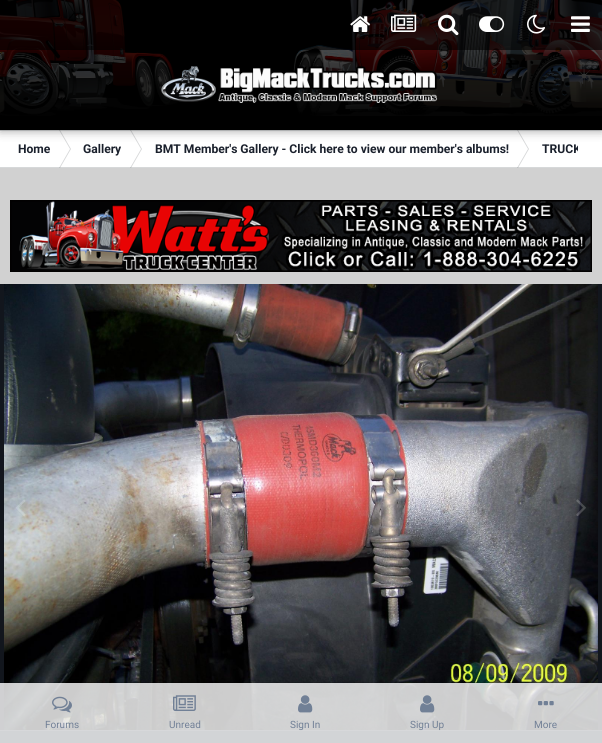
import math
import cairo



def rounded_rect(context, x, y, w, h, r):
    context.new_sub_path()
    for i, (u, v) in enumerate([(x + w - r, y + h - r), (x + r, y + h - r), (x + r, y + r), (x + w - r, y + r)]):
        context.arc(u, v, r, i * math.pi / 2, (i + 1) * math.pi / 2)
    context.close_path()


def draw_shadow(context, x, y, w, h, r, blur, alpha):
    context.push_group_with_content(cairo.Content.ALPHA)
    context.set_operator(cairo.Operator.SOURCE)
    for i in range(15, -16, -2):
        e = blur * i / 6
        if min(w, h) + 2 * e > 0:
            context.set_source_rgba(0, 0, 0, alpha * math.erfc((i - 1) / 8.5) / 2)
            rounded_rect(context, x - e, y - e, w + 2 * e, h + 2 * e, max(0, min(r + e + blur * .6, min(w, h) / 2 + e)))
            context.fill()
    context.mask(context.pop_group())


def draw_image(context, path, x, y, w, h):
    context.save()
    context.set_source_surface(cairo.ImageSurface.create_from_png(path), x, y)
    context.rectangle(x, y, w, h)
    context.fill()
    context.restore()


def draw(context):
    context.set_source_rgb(209 / 255, 209 / 255, 209 / 255)
    context.paint()
    context.set_source_rgb(1, 1, 1)
    context.rectangle(0, 130, 602, 38)
    context.fill()
    context.set_source_rgb(215 / 255, 216 / 255, 217 / 255)
    context.new_path()
    context.move_to(59, 130)
    context.line_to(60, 130)
    context.line_to(71, 149)
    context.line_to(70, 149)
    context.close_path()
    context.move_to(59, 168)
    context.line_to(60, 168)
    context.line_to(71, 149)
    context.line_to(70, 149)
    context.close_path()
    context.fill()
    context.new_path()
    context.move_to(130, 130)
    context.line_to(131, 130)
    context.line_to(142, 149)
    context.line_to(141, 149)
    context.close_path()
    context.move_to(130, 168)
    context.line_to(131, 168)
    context.line_to(142, 149)
    context.line_to(141, 149)
    context.close_path()
    context.fill()
    context.new_path()
    context.move_to(517, 130)
    context.line_to(518, 130)
    context.line_to(529, 149)
    context.line_to(528, 149)
    context.close_path()
    context.move_to(517, 168)
    context.line_to(518, 168)
    context.line_to(529, 149)
    context.line_to(528, 149)
    context.close_path()
    context.fill()
    context.set_source_rgba(53 / 255, 60 / 255, 65 / 255, 0.2)
    context.rectangle(0, 130, 602, 1)
    context.fill()
    context.set_source_rgb(0, 0, 0)
    draw_shadow(context, 0, 1, 602, 130, 0, 5, 0.35)
    context.set_source_rgb(0, 0, 0)
    context.rectangle(0, 116, 602, 14)
    context.fill()
    draw_image(context, "images/1.png", 0, 0, 602, 116)
    context.set_source_rgba(0, 0, 0, 0.6)
    context.rectangle(0, 0, 602, 50)
    context.fill()
    draw_image(context, "images/2.png", 350, 16, 21, 16)
    draw_image(context, "images/3.png", 391, 14, 26, 18)
    draw_image(context, "images/4.png", 438, 14, 21, 22)
    draw_image(context, "images/5.png", 479, 16, 26, 16)
    draw_image(context, "images/6.png", 527, 14, 18, 20)
    draw_image(context, "images/7.png", 571, 16, 19, 16)
    draw_image(context, "images/8.png", 160, 66, 278, 37)
    context.set_source_rgba(53 / 255, 60 / 255, 65 / 255, 0.2)
    context.rectangle(0, 167, 602, 1)
    context.fill()
    draw_image(context, "images/9.png", 10, 200, 582, 72)
    context.set_source_rgb(18 / 255, 22 / 255, 29 / 255)
    context.rectangle(0, 284, 602, 446)
    context.fill()
    draw_image(context, "images/10.png", 4, 284, 594, 446)
    draw_image(context, "images/11.png", 16, 499, 10, 17)
    draw_image(context, "images/12.png", 576, 499, 10, 17)
    context.set_source_rgb(32 / 255, 39 / 255, 50 / 255)
    context.rectangle(0, 731, 602, 12)
    context.fill()
    context.set_source_rgb(54 / 255, 61 / 255, 71 / 255)
    context.rectangle(0, 730, 602, 1)
    context.fill()
    context.set_source_rgba(0, 0, 0, 0.1)
    context.rectangle(0, 682, 602, 1)
    context.fill()
    context.set_source_rgba(1, 1, 1, 0.8)
    context.rectangle(0, 683, 602, 60)
    context.fill()
    draw_image(context, "images/13.png", 52, 696, 20, 17)
    draw_image(context, "images/14.png", 173, 695, 23, 16)
    draw_image(context, "images/15.png", 298, 695, 15, 18)
    draw_image(context, "images/16.png", 420, 695, 15, 18)
    draw_image(context, "images/17.png", 538, 701, 16, 5)
    context.select_font_face("Roboto", cairo.FontSlant.NORMAL, cairo.FontWeight.BOLD)
    context.set_font_size(12.1)
    context.set_source_rgb(26 / 255, 32 / 255, 44 / 255)
    context.move_to(18, 153)
    context.show_text("Home")
    context.move_to(83, 153)
    context.show_text("Gallery")
    context.move_to(155, 153)
    context.show_text("BMT Member's Gallery - Click here to view our member's albums!")
    context.save()
    context.rectangle(0, 130, 578, 38)
    context.clip()
    context.move_to(542, 153)
    context.show_text("TRUCK")
    context.restore()
    context.select_font_face("Roboto")
    context.set_font_size(10)
    context.set_source_rgb(113 / 255, 128 / 255, 150 / 255)
    context.move_to(45, 728)
    context.show_text("Forums")
    context.move_to(169, 728)
    context.show_text("Unread")
    context.move_to(290, 728)
    context.show_text("Sign In")
    context.move_to(410, 728)
    context.show_text("Sign Up")
    context.move_to(534, 728)
    context.show_text("More")


surface = cairo.ImageSurface(cairo.Format.RGB24, 602, 743)
context = cairo.Context(surface)
options = cairo.FontOptions()
options.set_hint_metrics(cairo.HintMetrics.OFF)
options.set_hint_style(cairo.HintStyle.NONE)
context.set_font_options(options)
context.set_miter_limit(4)
draw(context)
surface.write_to_png("out.png")
